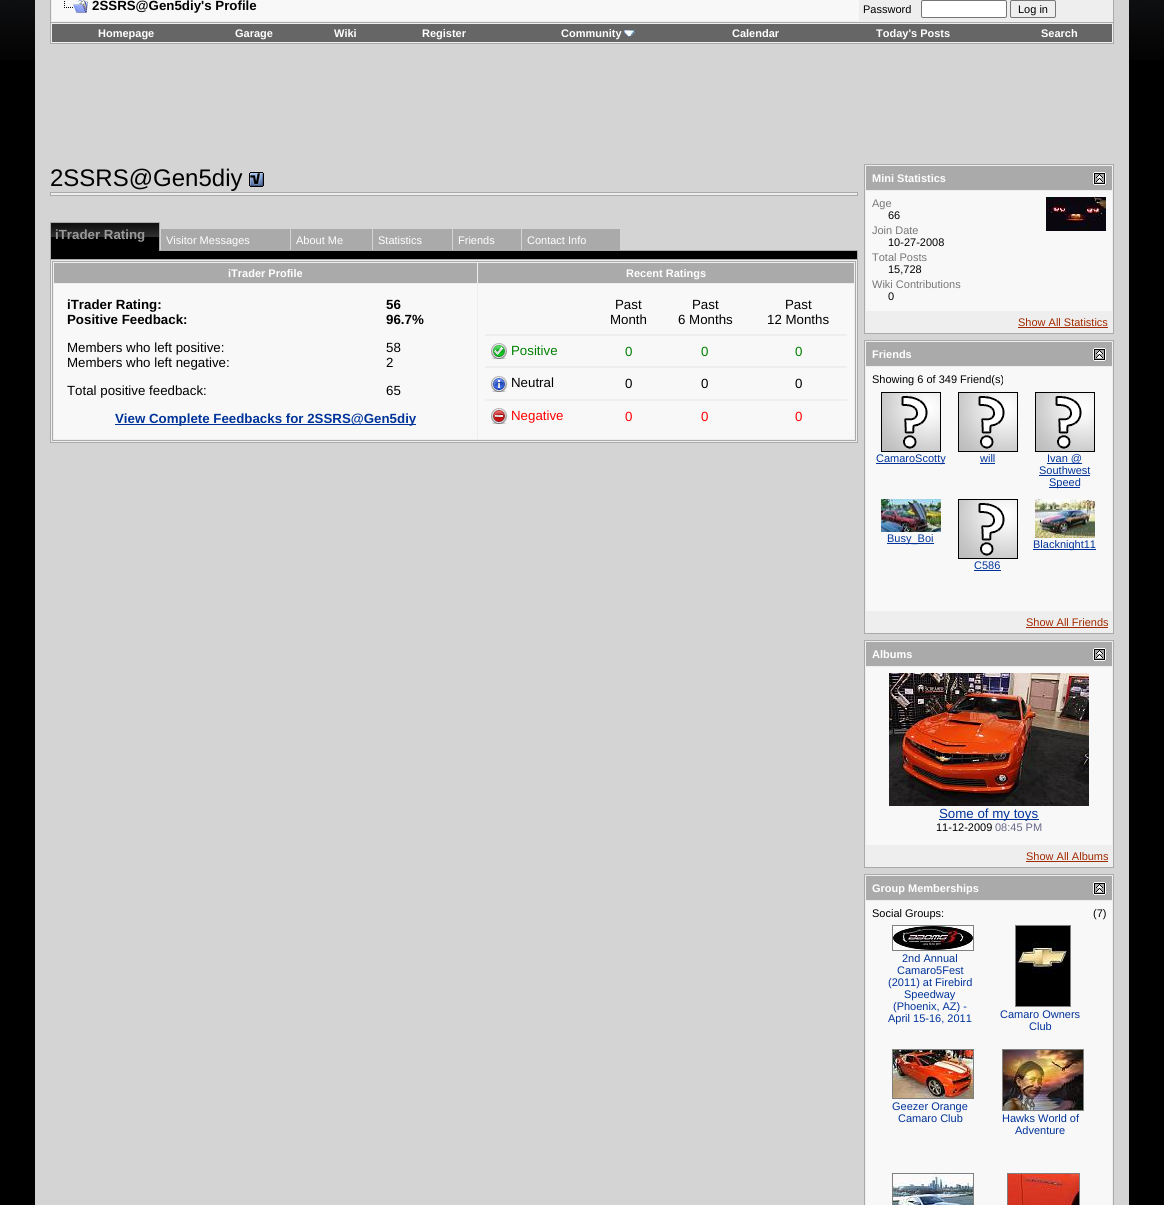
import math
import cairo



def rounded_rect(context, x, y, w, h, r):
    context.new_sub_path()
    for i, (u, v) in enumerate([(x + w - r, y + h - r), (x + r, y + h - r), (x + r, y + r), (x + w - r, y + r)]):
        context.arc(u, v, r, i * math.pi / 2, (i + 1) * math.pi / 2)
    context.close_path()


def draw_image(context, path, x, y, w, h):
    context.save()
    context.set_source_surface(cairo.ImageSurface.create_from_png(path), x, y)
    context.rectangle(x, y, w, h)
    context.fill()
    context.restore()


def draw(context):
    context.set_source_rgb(0, 0, 0)
    context.paint()
    draw_image(context, "images/1.png", 0, 0, 1164, 60)
    context.set_source_rgb(212 / 255, 212 / 255, 212 / 255)
    context.rectangle(35, 0, 1094, 1205)
    context.fill()
    context.set_source_rgb(238 / 255, 238 / 255, 238 / 255)
    context.rectangle(50.5, -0.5, 1063, 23)
    context.fill_preserve()
    context.set_source_rgb(170 / 255, 170 / 255, 170 / 255)
    context.set_line_width(1)
    context.stroke()
    context.set_source_rgb(248 / 255, 248 / 255, 248 / 255)
    context.rectangle(52, 0, 807, 21)
    context.fill()
    draw_image(context, "images/2.png", 64, 0, 24, 13)
    context.set_source_rgb(1, 1, 1)
    rounded_rect(context, 921.5, 0.5, 85, 17, 1.5)
    context.fill_preserve()
    context.set_source_rgb(118 / 255, 118 / 255, 118 / 255)
    context.stroke()
    rounded_rect(context, 1010.5, 0.5, 45, 17, 1.5)
    context.stroke()
    context.set_source_rgb(238 / 255, 238 / 255, 238 / 255)
    context.rectangle(51, 23, 1062, 20)
    context.fill()
    context.set_source_rgb(170 / 255, 170 / 255, 170 / 255)
    context.rectangle(1113, 23, 1, 21)
    context.fill()
    context.rectangle(50, 43, 1064, 1)
    context.fill()
    context.rectangle(50, 23, 1, 21)
    context.fill()
    context.set_source_rgb(102 / 255, 102 / 255, 102 / 255)
    context.rectangle(52, 24, 1060, 18)
    context.fill()
    draw_image(context, "images/3.png", 624, 30, 11, 7)
    draw_image(context, "images/4.png", 249, 172, 15, 15)
    context.set_source_rgb(238 / 255, 238 / 255, 238 / 255)
    context.rectangle(50.5, 192.5, 807, 3)
    context.fill_preserve()
    context.set_source_rgb(170 / 255, 170 / 255, 170 / 255)
    context.stroke()
    context.set_source_rgb(0, 0, 0)
    context.rectangle(51, 237, 108, 14)
    context.fill()
    draw_image(context, "images/5.png", 51, 223, 108, 14)
    context.set_source_rgb(170 / 255, 170 / 255, 170 / 255)
    context.rectangle(50, 222, 110, 1)
    context.fill()
    context.rectangle(159, 222, 1, 29)
    context.fill()
    context.rectangle(50, 250, 1, 9)
    context.fill()
    context.rectangle(50, 222, 1, 29)
    context.fill()
    context.rectangle(161, 229, 129, 21)
    context.fill()
    context.rectangle(291, 229, 81, 21)
    context.fill()
    context.rectangle(373, 229, 79, 21)
    context.fill()
    context.rectangle(453, 229, 68, 21)
    context.fill()
    context.rectangle(522, 229, 98, 21)
    context.fill()
    context.set_source_rgb(0, 0, 0)
    context.rectangle(51, 251, 806, 8)
    context.fill()
    context.set_source_rgb(170 / 255, 170 / 255, 170 / 255)
    context.rectangle(160, 250, 698, 1)
    context.fill()
    context.rectangle(857, 250, 1, 9)
    context.fill()
    context.set_source_rgb(238 / 255, 238 / 255, 238 / 255)
    context.rectangle(50.5, 259.5, 807, 183)
    context.fill_preserve()
    context.set_source_rgb(170 / 255, 170 / 255, 170 / 255)
    context.stroke()
    context.rectangle(52.5, 261.5, 803, 179)
    context.stroke()
    context.rectangle(54, 263, 423, 20)
    context.fill()
    context.rectangle(478, 263, 376, 20)
    context.fill()
    context.set_source_rgb(248 / 255, 248 / 255, 248 / 255)
    context.rectangle(54, 284, 423, 155)
    context.fill()
    context.set_source_rgb(0, 51 / 255, 153 / 255)
    context.rectangle(115, 424, 301, 1)
    context.fill()
    context.set_source_rgb(248 / 255, 248 / 255, 248 / 255)
    context.rectangle(478, 284, 376, 155)
    context.fill()
    context.set_source_rgb(238 / 255, 238 / 255, 238 / 255)
    context.rectangle(485, 334, 362, 2)
    context.fill()
    draw_image(context, "images/6.png", 491, 343, 16, 16)
    context.rectangle(485, 366, 362, 2)
    context.fill()
    draw_image(context, "images/7.png", 491, 376, 16, 16)
    context.rectangle(485, 399, 362, 2)
    context.fill()
    draw_image(context, "images/8.png", 491, 408, 16, 16)
    context.rectangle(864.5, 164.5, 249, 169)
    context.fill_preserve()
    context.set_source_rgb(170 / 255, 170 / 255, 170 / 255)
    context.stroke()
    context.rectangle(866, 166, 246, 24)
    context.fill()
    draw_image(context, "images/9.png", 1093, 172, 13, 13)
    context.set_source_rgb(248 / 255, 248 / 255, 248 / 255)
    context.rectangle(866, 191, 246, 120)
    context.fill()
    draw_image(context, "images/10.png", 1046, 197, 60, 34)
    context.set_source_rgb(162 / 255, 42 / 255, 0)
    context.rectangle(1018, 327, 90, 1)
    context.fill()
    context.set_source_rgb(238 / 255, 238 / 255, 238 / 255)
    context.rectangle(864.5, 340.5, 249, 293)
    context.fill_preserve()
    context.set_source_rgb(170 / 255, 170 / 255, 170 / 255)
    context.stroke()
    context.rectangle(866, 342, 246, 24)
    context.fill()
    draw_image(context, "images/9.png", 1093, 348, 13, 13)
    context.set_source_rgb(248 / 255, 248 / 255, 248 / 255)
    context.rectangle(866, 367, 246, 244)
    context.fill()
    draw_image(context, "images/11.png", 881, 392, 60, 60)
    context.set_source_rgb(0, 51 / 255, 153 / 255)
    context.rectangle(876, 463, 69, 1)
    context.fill()
    draw_image(context, "images/11.png", 958, 392, 60, 60)
    context.rectangle(980, 463, 15, 1)
    context.fill()
    draw_image(context, "images/11.png", 1035, 392, 60, 60)
    context.rectangle(1047, 463, 35, 1)
    context.fill()
    context.rectangle(1039, 475, 51, 1)
    context.fill()
    context.rectangle(1049, 487, 31, 1)
    context.fill()
    draw_image(context, "images/12.png", 881, 499, 60, 33)
    context.rectangle(887, 543, 47, 1)
    context.fill()
    draw_image(context, "images/13.png", 1035, 499, 60, 39)
    context.rectangle(1033, 549, 63, 1)
    context.fill()
    draw_image(context, "images/11.png", 958, 499, 60, 60)
    context.rectangle(974, 570, 27, 1)
    context.fill()
    context.set_source_rgb(162 / 255, 42 / 255, 0)
    context.rectangle(1026, 627, 82, 1)
    context.fill()
    context.set_source_rgb(238 / 255, 238 / 255, 238 / 255)
    context.rectangle(864.5, 640.5, 249, 227)
    context.fill_preserve()
    context.set_source_rgb(170 / 255, 170 / 255, 170 / 255)
    context.stroke()
    context.rectangle(866, 642, 246, 24)
    context.fill()
    draw_image(context, "images/9.png", 1093, 648, 13, 13)
    context.set_source_rgb(248 / 255, 248 / 255, 248 / 255)
    context.rectangle(866, 667, 246, 178)
    context.fill()
    draw_image(context, "images/14.png", 889, 673, 200, 133)
    context.set_source_rgb(0, 51 / 255, 153 / 255)
    context.rectangle(939, 819, 100, 1)
    context.fill()
    context.set_source_rgb(162 / 255, 42 / 255, 0)
    context.rectangle(1026, 861, 82, 1)
    context.fill()
    context.set_source_rgb(238 / 255, 238 / 255, 238 / 255)
    context.rectangle(864.5, 874.5, 249, 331)
    context.fill_preserve()
    context.set_source_rgb(170 / 255, 170 / 255, 170 / 255)
    context.stroke()
    context.rectangle(866, 876, 246, 24)
    context.fill()
    draw_image(context, "images/9.png", 1093, 882, 13, 13)
    context.set_source_rgb(248 / 255, 248 / 255, 248 / 255)
    context.rectangle(866, 901, 246, 304)
    context.fill()
    context.rectangle(892.5, 925.5, 81, 25)
    context.set_source_rgb(128 / 255, 128 / 255, 128 / 255)
    context.stroke()
    draw_image(context, "images/15.png", 893, 926, 80, 24)
    context.rectangle(1015.5, 925.5, 55, 81)
    context.stroke()
    draw_image(context, "images/16.png", 1016, 926, 54, 80)
    context.rectangle(892.5, 1049.5, 81, 49)
    context.stroke()
    draw_image(context, "images/17.png", 893, 1050, 80, 48)
    context.rectangle(1002.5, 1049.5, 81, 61)
    context.stroke()
    draw_image(context, "images/18.png", 1003, 1050, 80, 60)
    context.rectangle(892.5, 1173.5, 81, 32)
    context.stroke()
    draw_image(context, "images/19.png", 893, 1174, 80, 31)
    context.rectangle(1007.5, 1173.5, 72, 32)
    context.stroke()
    draw_image(context, "images/20.png", 1008, 1174, 71, 31)
    context.select_font_face("Liberation Sans", cairo.FontSlant.NORMAL, cairo.FontWeight.BOLD)
    context.set_font_size(13.3)
    context.set_source_rgb(0, 0, 0)
    context.move_to(92, 10)
    context.show_text("2SSRS@Gen5diy's Profile")
    context.select_font_face("Liberation Sans")
    context.set_font_size(11)
    context.move_to(863, 13)
    context.show_text("Password")
    context.move_to(1018, 13)
    context.show_text("Log in")
    context.select_font_face("Liberation Sans", cairo.FontSlant.NORMAL, cairo.FontWeight.BOLD)
    context.set_source_rgb(1, 1, 1)
    context.move_to(98, 37)
    context.show_text("Homepage")
    context.move_to(235, 37)
    context.show_text("Garage")
    context.move_to(334, 37)
    context.show_text("Wiki")
    context.move_to(422, 37)
    context.show_text("Register")
    context.move_to(561, 37)
    context.show_text("Community")
    context.move_to(732, 37)
    context.show_text("Calendar")
    context.move_to(876, 37)
    context.show_text("Today's Posts")
    context.move_to(1041, 37)
    context.show_text("Search")
    context.select_font_face("Liberation Sans")
    context.set_font_size(24)
    context.set_source_rgb(0, 0, 0)
    context.move_to(50, 186)
    context.show_text("2SSRS@Gen5diy")
    context.select_font_face("Liberation Sans", cairo.FontSlant.NORMAL, cairo.FontWeight.BOLD)
    context.set_font_size(13.3)
    context.set_source_rgb(153 / 255, 153 / 255, 153 / 255)
    context.move_to(55, 239)
    context.show_text("iTrader Rating")
    context.select_font_face("Liberation Sans")
    context.set_font_size(11)
    context.set_source_rgb(1, 1, 1)
    context.move_to(166, 244)
    context.show_text("Visitor Messages")
    context.move_to(296, 244)
    context.show_text("About Me")
    context.move_to(378, 244)
    context.show_text("Statistics")
    context.move_to(458, 244)
    context.show_text("Friends")
    context.move_to(527, 244)
    context.show_text("Contact Info")
    context.select_font_face("Liberation Sans", cairo.FontSlant.NORMAL, cairo.FontWeight.BOLD)
    context.move_to(228, 277)
    context.show_text("iTrader Profile")
    context.move_to(626, 277)
    context.show_text("Recent Ratings")
    context.set_font_size(13.3)
    context.set_source_rgb(0, 0, 0)
    context.move_to(67, 309)
    context.show_text("iTrader Rating:")
    context.move_to(67, 324)
    context.show_text("Positive Feedback:")
    context.move_to(386, 309)
    context.show_text("56")
    context.move_to(386, 324)
    context.show_text("96.7%")
    context.select_font_face("Liberation Sans")
    context.move_to(67, 352)
    context.show_text("Members who left positive:")
    context.move_to(67, 367)
    context.show_text("Members who left negative:")
    context.move_to(386, 352)
    context.show_text("58")
    context.move_to(386, 367)
    context.show_text("2")
    context.move_to(67, 395)
    context.show_text("Total positive feedback:")
    context.move_to(386, 395)
    context.show_text("65")
    context.select_font_face("Liberation Sans", cairo.FontSlant.NORMAL, cairo.FontWeight.BOLD)
    context.set_source_rgb(0, 51 / 255, 153 / 255)
    context.move_to(115, 423)
    context.show_text("View Complete Feedbacks for 2SSRS@Gen5diy")
    context.select_font_face("Liberation Sans")
    context.set_source_rgb(0, 0, 0)
    context.move_to(615, 309)
    context.show_text("Past")
    context.move_to(610, 324)
    context.show_text("Month")
    context.move_to(692, 309)
    context.show_text("Past")
    context.move_to(678, 324)
    context.show_text("6 Months")
    context.move_to(785, 309)
    context.show_text("Past")
    context.move_to(767, 324)
    context.show_text("12 Months")
    context.set_source_rgb(0, 128 / 255, 0)
    context.move_to(511, 355)
    context.show_text("Positive")
    context.move_to(625, 356)
    context.show_text("0")
    context.move_to(701, 356)
    context.show_text("0")
    context.move_to(795, 356)
    context.show_text("0")
    context.set_source_rgb(0, 0, 0)
    context.move_to(511, 387)
    context.show_text("Neutral")
    context.move_to(625, 388)
    context.show_text("0")
    context.move_to(701, 388)
    context.show_text("0")
    context.move_to(795, 388)
    context.show_text("0")
    context.set_source_rgb(1, 0, 0)
    context.move_to(511, 420)
    context.show_text("Negative")
    context.move_to(625, 421)
    context.show_text("0")
    context.move_to(701, 421)
    context.show_text("0")
    context.move_to(795, 421)
    context.show_text("0")
    context.select_font_face("Liberation Sans", cairo.FontSlant.NORMAL, cairo.FontWeight.BOLD)
    context.set_font_size(11)
    context.set_source_rgb(1, 1, 1)
    context.move_to(872, 182)
    context.show_text("Mini Statistics")
    context.select_font_face("Liberation Sans")
    context.set_source_rgb(119 / 255, 119 / 255, 119 / 255)
    context.move_to(872, 207)
    context.show_text("Age")
    context.set_source_rgb(0, 0, 0)
    context.move_to(888, 219)
    context.show_text("66")
    context.set_source_rgb(119 / 255, 119 / 255, 119 / 255)
    context.move_to(872, 234)
    context.show_text("Join Date")
    context.set_source_rgb(0, 0, 0)
    context.move_to(888, 246)
    context.show_text("10-27-2008")
    context.set_source_rgb(119 / 255, 119 / 255, 119 / 255)
    context.move_to(872, 261)
    context.show_text("Total Posts")
    context.set_source_rgb(0, 0, 0)
    context.move_to(888, 273)
    context.show_text("15,728")
    context.set_source_rgb(119 / 255, 119 / 255, 119 / 255)
    context.move_to(872, 288)
    context.show_text("Wiki Contributions")
    context.set_source_rgb(0, 0, 0)
    context.move_to(888, 300)
    context.show_text("0")
    context.set_source_rgb(162 / 255, 42 / 255, 0)
    context.move_to(1018, 326)
    context.show_text("Show All Statistics")
    context.select_font_face("Liberation Sans", cairo.FontSlant.NORMAL, cairo.FontWeight.BOLD)
    context.set_source_rgb(1, 1, 1)
    context.move_to(872, 358)
    context.show_text("Friends")
    context.select_font_face("Liberation Sans")
    context.set_source_rgb(0, 0, 0)
    context.move_to(872, 383)
    context.show_text("Showing 6 of 349 Friend(s)")
    context.set_source_rgb(0, 51 / 255, 153 / 255)
    context.move_to(876, 462)
    context.show_text("CamaroScotty")
    context.move_to(980, 462)
    context.show_text("will")
    context.move_to(1047, 462)
    context.show_text("Ivan @")
    context.move_to(1039, 474)
    context.show_text("Southwest")
    context.move_to(1049, 486)
    context.show_text("Speed")
    context.move_to(887, 542)
    context.show_text("Busy_Boi")
    context.move_to(1033, 548)
    context.show_text("Blacknight11")
    context.move_to(974, 569)
    context.show_text("C586")
    context.set_source_rgb(162 / 255, 42 / 255, 0)
    context.move_to(1026, 626)
    context.show_text("Show All Friends")
    context.select_font_face("Liberation Sans", cairo.FontSlant.NORMAL, cairo.FontWeight.BOLD)
    context.set_source_rgb(1, 1, 1)
    context.move_to(872, 658)
    context.show_text("Albums")
    context.select_font_face("Liberation Sans")
    context.set_font_size(13.3)
    context.set_source_rgb(0, 51 / 255, 153 / 255)
    context.move_to(939, 818)
    context.show_text("Some of my toys")
    context.set_font_size(11)
    context.set_source_rgb(0, 0, 0)
    context.move_to(936, 831)
    context.show_text("11-12-2009")
    context.set_source_rgb(102 / 255, 102 / 255, 134 / 255)
    context.move_to(995, 831)
    context.show_text("08:45 PM")
    context.set_source_rgb(162 / 255, 42 / 255, 0)
    context.move_to(1026, 860)
    context.show_text("Show All Albums")
    context.select_font_face("Liberation Sans", cairo.FontSlant.NORMAL, cairo.FontWeight.BOLD)
    context.set_source_rgb(1, 1, 1)
    context.move_to(872, 892)
    context.show_text("Group Memberships")
    context.select_font_face("Liberation Sans")
    context.set_source_rgb(0, 0, 0)
    context.move_to(872, 917)
    context.show_text("Social Groups:")
    context.move_to(1093, 917)
    context.show_text("(7)")
    context.set_source_rgb(0, 51 / 255, 153 / 255)
    context.move_to(902, 962)
    context.show_text("2nd Annual")
    context.move_to(897, 974)
    context.show_text("Camaro5Fest")
    context.move_to(888, 986)
    context.show_text("(2011) at Firebird")
    context.move_to(904, 998)
    context.show_text("Speedway")
    context.move_to(893, 1010)
    context.show_text("(Phoenix, AZ) -")
    context.move_to(888, 1022)
    context.show_text("April 15-16, 2011")
    context.move_to(1000, 1018)
    context.show_text("Camaro Owners")
    context.move_to(1029, 1030)
    context.show_text("Club")
    context.move_to(892, 1110)
    context.show_text("Geezer Orange")
    context.move_to(898, 1122)
    context.show_text("Camaro Club")
    context.move_to(1002, 1122)
    context.show_text("Hawks World of")
    context.move_to(1015, 1134)
    context.show_text("Adventure")


surface = cairo.ImageSurface(cairo.Format.RGB24, 1164, 1205)
context = cairo.Context(surface)
options = cairo.FontOptions()
options.set_hint_metrics(cairo.HintMetrics.OFF)
options.set_hint_style(cairo.HintStyle.NONE)
context.set_font_options(options)
context.set_miter_limit(4)
draw(context)
surface.write_to_png("out.png")
